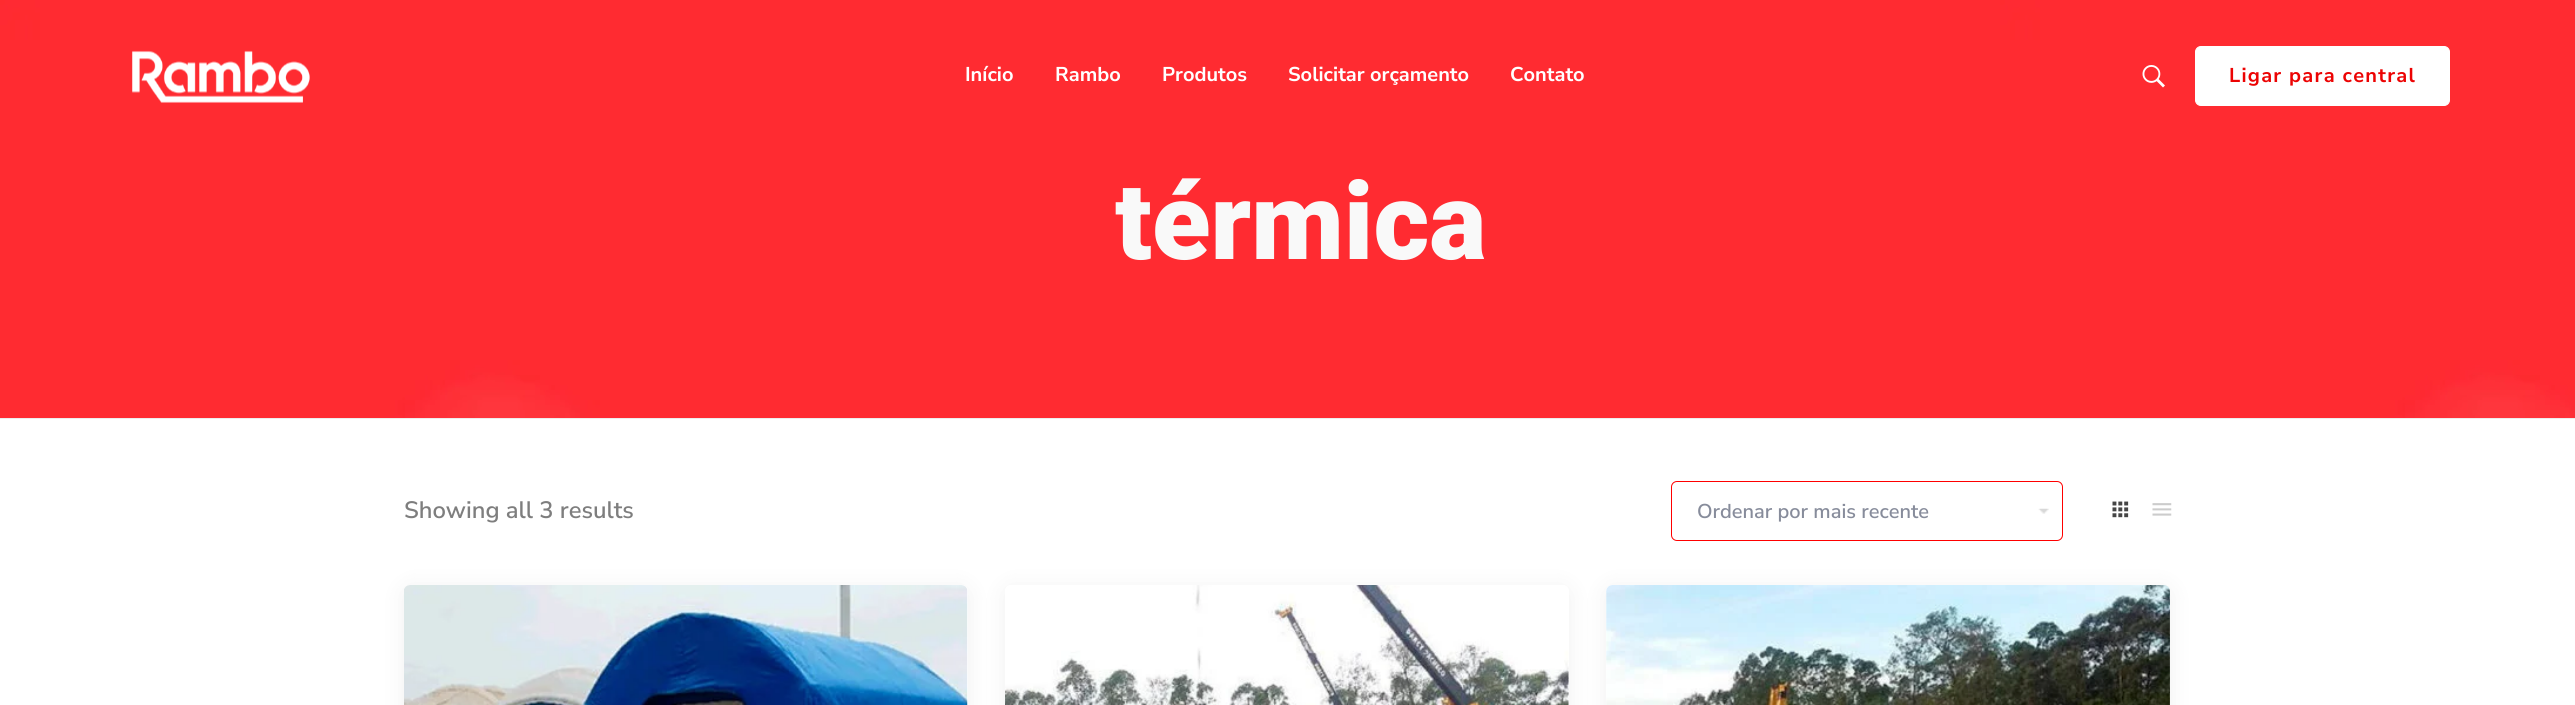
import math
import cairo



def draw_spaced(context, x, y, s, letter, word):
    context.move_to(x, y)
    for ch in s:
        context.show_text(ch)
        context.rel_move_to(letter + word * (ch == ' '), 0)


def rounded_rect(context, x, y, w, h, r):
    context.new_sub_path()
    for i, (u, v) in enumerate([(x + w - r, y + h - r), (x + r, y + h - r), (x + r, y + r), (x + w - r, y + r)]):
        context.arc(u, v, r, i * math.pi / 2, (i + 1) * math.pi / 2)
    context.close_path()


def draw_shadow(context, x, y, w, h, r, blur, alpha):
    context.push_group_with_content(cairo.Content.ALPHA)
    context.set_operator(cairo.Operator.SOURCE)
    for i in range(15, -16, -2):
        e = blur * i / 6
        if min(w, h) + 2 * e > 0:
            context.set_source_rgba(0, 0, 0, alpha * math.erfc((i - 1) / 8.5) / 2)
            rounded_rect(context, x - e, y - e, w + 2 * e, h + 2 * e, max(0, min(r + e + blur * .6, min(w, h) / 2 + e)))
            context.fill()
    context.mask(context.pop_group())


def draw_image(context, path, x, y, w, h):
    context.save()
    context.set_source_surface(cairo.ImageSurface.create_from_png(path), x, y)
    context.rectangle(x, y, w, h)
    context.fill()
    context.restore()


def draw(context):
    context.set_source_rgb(1, 1, 1)
    context.paint()
    draw_image(context, "images/3.png", 0, 0, 2575, 418)
    draw_image(context, "images/1.png", 132, 50, 178, 53)
    draw_image(context, "images/2.png", 2142, 65, 23, 23)
    context.set_source_rgb(1, 1, 1)
    rounded_rect(context, 2195.5, 46.5, 254, 59, 5.5)
    context.fill_preserve()
    context.set_line_width(1)
    context.stroke()
    context.set_source_rgb(237 / 255, 237 / 255, 237 / 255)
    context.rectangle(0, 418, 2575, 1)
    context.fill()
    draw_image(context, "images/4.png", 2038, 508, 11, 6)
    rounded_rect(context, 1671.5, 481.5, 391, 59, 5.5)
    context.set_source_rgb(1, 0, 0)
    context.stroke()
    draw_image(context, "images/5.png", 2112, 501, 17, 17)
    draw_image(context, "images/6.png", 2152, 503, 20, 13)
    context.set_source_rgb(0, 0, 0)
    draw_shadow(context, 404, 588, 564, 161, 6, 12.5, 0.06)
    context.set_source_rgb(1, 1, 1)
    rounded_rect(context, 404, 585, 564, 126, 6)
    context.fill()
    draw_image(context, "images/7.png", 404, 585, 564, 120)
    context.set_source_rgb(0, 0, 0)
    draw_shadow(context, 1005, 588, 564, 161, 6, 12.5, 0.06)
    context.set_source_rgb(1, 1, 1)
    rounded_rect(context, 1005, 585, 564, 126, 6)
    context.fill()
    draw_image(context, "images/8.png", 1005, 585, 564, 120)
    context.set_source_rgb(0, 0, 0)
    draw_shadow(context, 1606, 588, 564, 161, 6, 12.5, 0.06)
    context.set_source_rgb(1, 1, 1)
    rounded_rect(context, 1606, 585, 564, 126, 6)
    context.fill()
    draw_image(context, "images/9.png", 1606, 585, 564, 120)
    context.select_font_face("Nunito Sans", cairo.FontSlant.NORMAL, cairo.FontWeight.BOLD)
    context.set_font_size(20)
    context.move_to(965, 81)
    context.show_text("Início")
    context.move_to(1055, 81)
    context.show_text("Rambo")
    context.move_to(1162, 81)
    context.show_text("Produtos")
    context.move_to(1288, 81)
    context.show_text("Solicitar orçamento")
    context.move_to(1510, 81)
    context.show_text("Contato")
    context.set_source_rgb(236 / 255, 3 / 255, 3 / 255)
    draw_spaced(context, 2229, 82, "Ligar para central", 1.25, 0)
    context.select_font_face("Roboto Black")
    context.set_font_size(107.5)
    context.set_source_rgb(249 / 255, 249 / 255, 249 / 255)
    context.move_to(1115, 259)
    context.show_text("térmica")
    context.select_font_face("Nunito Sans SemiBold")
    context.set_font_size(23.75)
    context.set_source_rgb(126 / 255, 126 / 255, 126 / 255)
    context.move_to(404, 518)
    context.show_text("Showing all 3 results")
    context.set_font_size(20)
    context.set_source_rgb(135 / 255, 140 / 255, 155 / 255)
    context.move_to(1697, 518)
    context.show_text("Ordenar por mais recente")


surface = cairo.ImageSurface(cairo.Format.RGB24, 2575, 705)
context = cairo.Context(surface)
options = cairo.FontOptions()
options.set_hint_metrics(cairo.HintMetrics.OFF)
options.set_hint_style(cairo.HintStyle.NONE)
context.set_font_options(options)
context.set_miter_limit(4)
draw(context)
surface.write_to_png("out.png")
